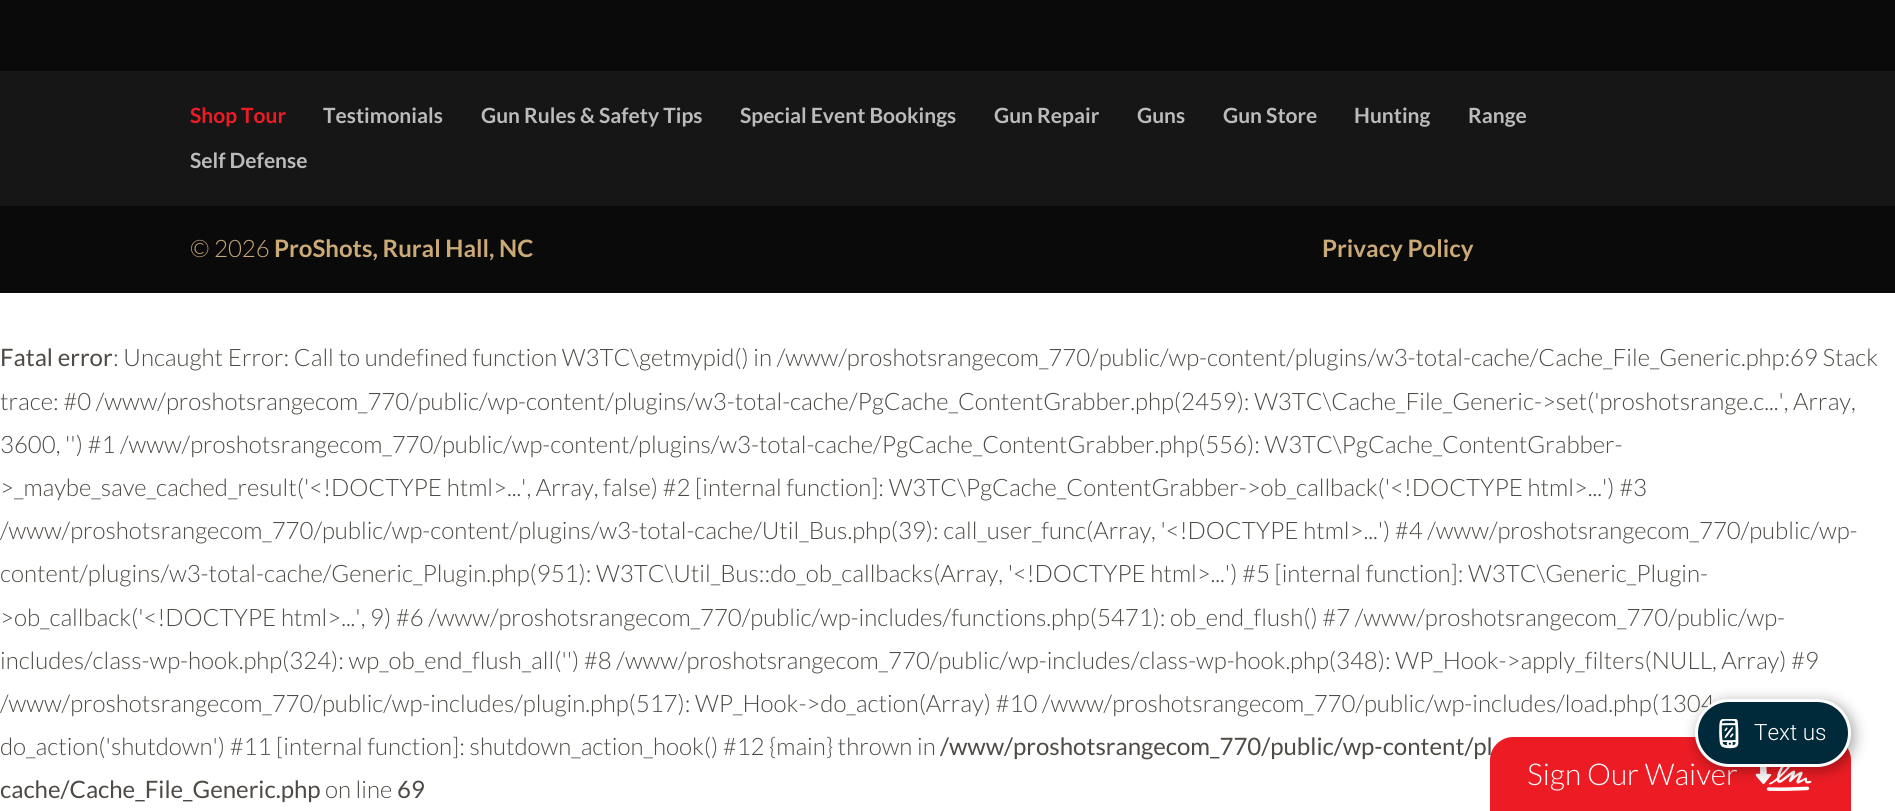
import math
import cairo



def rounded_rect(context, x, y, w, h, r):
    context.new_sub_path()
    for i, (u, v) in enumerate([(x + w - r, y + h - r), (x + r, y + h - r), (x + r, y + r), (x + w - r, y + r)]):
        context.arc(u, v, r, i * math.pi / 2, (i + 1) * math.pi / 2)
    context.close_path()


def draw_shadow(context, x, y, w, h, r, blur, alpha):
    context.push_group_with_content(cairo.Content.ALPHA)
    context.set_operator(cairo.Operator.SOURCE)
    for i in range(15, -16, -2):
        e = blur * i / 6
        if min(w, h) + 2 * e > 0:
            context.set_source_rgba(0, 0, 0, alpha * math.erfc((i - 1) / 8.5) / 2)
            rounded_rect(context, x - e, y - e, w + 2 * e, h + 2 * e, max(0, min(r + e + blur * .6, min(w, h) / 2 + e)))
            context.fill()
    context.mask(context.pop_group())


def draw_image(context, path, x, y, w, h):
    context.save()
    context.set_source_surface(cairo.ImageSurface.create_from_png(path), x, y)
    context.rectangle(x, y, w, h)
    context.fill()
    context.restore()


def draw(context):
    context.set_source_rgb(1, 1, 1)
    context.paint()
    context.set_source_rgb(10 / 255, 10 / 255, 10 / 255)
    context.rectangle(0, 0, 1895, 293)
    context.fill()
    context.set_source_rgb(22 / 255, 22 / 255, 22 / 255)
    context.rectangle(0, 71, 1895, 135)
    context.fill()
    context.select_font_face("Lato", cairo.FontSlant.NORMAL, cairo.FontWeight.BOLD)
    context.set_font_size(21)
    context.set_source_rgb(237 / 255, 28 / 255, 36 / 255)
    context.move_to(190, 123)
    context.show_text("Shop Tour")
    context.set_source_rgb(187 / 255, 187 / 255, 187 / 255)
    context.move_to(323, 123)
    context.show_text("Testimonials")
    context.move_to(481, 123)
    context.show_text("Gun Rules & Safety Tips")
    context.move_to(740, 123)
    context.show_text("Special Event Bookings")
    context.move_to(994, 123)
    context.show_text("Gun Repair")
    context.move_to(1137, 123)
    context.show_text("Guns")
    context.move_to(1223, 123)
    context.show_text("Gun Store")
    context.move_to(1354, 123)
    context.show_text("Hunting")
    context.move_to(1468, 123)
    context.show_text("Range")
    context.move_to(190, 168)
    context.show_text("Self Defense")
    context.select_font_face("Lato Light")
    context.set_font_size(24)
    context.set_source_rgb(203 / 255, 170 / 255, 119 / 255)
    context.move_to(190, 257)
    context.show_text("© 2026")
    context.select_font_face("Lato", cairo.FontSlant.NORMAL, cairo.FontWeight.BOLD)
    context.move_to(274, 257)
    context.show_text("ProShots, Rural Hall, NC")
    context.move_to(1322, 257)
    context.show_text("Privacy Policy")
    context.select_font_face("Lato")
    context.set_source_rgb(78 / 255, 74 / 255, 69 / 255)
    context.move_to(0, 366)
    context.show_text("Fatal error")
    context.select_font_face("Lato Light")
    context.move_to(113, 366)
    context.show_text(": Uncaught Error: Call to undefined function W3TC\\getmypid() in /www/proshotsrangecom_770/public/wp-content/plugins/w3-total-cache/Cache_File_Generic.php:69 Stack")
    context.move_to(0, 410)
    context.show_text("trace: #0 /www/proshotsrangecom_770/public/wp-content/plugins/w3-total-cache/PgCache_ContentGrabber.php(2459): W3TC\\Cache_File_Generic->set('proshotsrange.c...', Array,")
    context.move_to(0, 453)
    context.show_text("3600, '') #1 /www/proshotsrangecom_770/public/wp-content/plugins/w3-total-cache/PgCache_ContentGrabber.php(556): W3TC\\PgCache_ContentGrabber-")
    context.move_to(0, 496)
    context.show_text(">_maybe_save_cached_result('<!DOCTYPE html>...', Array, false) #2 [internal function]: W3TC\\PgCache_ContentGrabber->ob_callback('<!DOCTYPE html>...') #3")
    context.move_to(0, 539)
    context.show_text("/www/proshotsrangecom_770/public/wp-content/plugins/w3-total-cache/Util_Bus.php(39): call_user_func(Array, '<!DOCTYPE html>...') #4 /www/proshotsrangecom_770/public/wp-")
    context.move_to(0, 582)
    context.show_text("content/plugins/w3-total-cache/Generic_Plugin.php(951): W3TC\\Util_Bus::do_ob_callbacks(Array, '<!DOCTYPE html>...') #5 [internal function]: W3TC\\Generic_Plugin-")
    context.move_to(0, 626)
    context.show_text(">ob_callback('<!DOCTYPE html>...', 9) #6 /www/proshotsrangecom_770/public/wp-includes/functions.php(5471): ob_end_flush() #7 /www/proshotsrangecom_770/public/wp-")
    context.move_to(0, 669)
    context.show_text("includes/class-wp-hook.php(324): wp_ob_end_flush_all('') #8 /www/proshotsrangecom_770/public/wp-includes/class-wp-hook.php(348): WP_Hook->apply_filters(NULL, Array) #9")
    context.move_to(0, 712)
    context.show_text("/www/proshotsrangecom_770/public/wp-includes/plugin.php(517): WP_Hook->do_action(Array) #10 /www/proshotsrangecom_770/public/wp-includes/load.php(1304")
    context.move_to(0, 755)
    context.show_text("do_action('shutdown') #11 [internal function]: shutdown_action_hook() #12 {main} thrown in")
    context.select_font_face("Lato")
    context.move_to(940, 755)
    context.show_text("/www/proshotsrangecom_770/public/wp-content/pl")
    context.move_to(0, 798)
    context.show_text("cache/Cache_File_Generic.php")
    context.select_font_face("Lato Light")
    context.move_to(325, 798)
    context.show_text("on line")
    context.select_font_face("Lato")
    context.move_to(397, 798)
    context.show_text("69")
    context.set_source_rgb(237 / 255, 28 / 255, 36 / 255)
    context.new_path()
    context.move_to(1513, 737)
    context.line_to(1828, 737)
    context.curve_to(1840.5, 737, 1851, 747.5, 1851, 760)
    context.line_to(1851, 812)
    context.line_to(1490, 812)
    context.line_to(1490, 760)
    context.curve_to(1490, 747.5, 1500.5, 737, 1513, 737)
    context.close_path()
    context.fill()
    context.select_font_face("Lato Light")
    context.set_font_size(30)
    context.set_source_rgb(1, 1, 1)
    context.move_to(1527, 785)
    context.show_text("Sign Our Waiver")
    draw_image(context, "images/2.png", 1755, 767, 57, 24)
    context.set_source_rgb(0, 0, 0)
    draw_shadow(context, 1698, 702, 156, 68, 34, 7, 0.35)
    context.set_source_rgb(0, 41 / 255, 58 / 255)
    rounded_rect(context, 1696.5, 700.5, 153, 65, 32.5)
    context.fill_preserve()
    context.set_source_rgb(1, 1, 1)
    context.set_line_width(3)
    context.stroke()
    context.select_font_face("Roboto Light")
    context.set_font_size(22.5)
    context.move_to(1754, 740)
    context.show_text("Text us")
    draw_image(context, "images/1.png", 1719, 719, 20, 30)


surface = cairo.ImageSurface(cairo.Format.RGB24, 1895, 811)
context = cairo.Context(surface)
options = cairo.FontOptions()
options.set_hint_metrics(cairo.HintMetrics.OFF)
options.set_hint_style(cairo.HintStyle.NONE)
context.set_font_options(options)
context.set_miter_limit(4)
draw(context)
surface.write_to_png("out.png")
